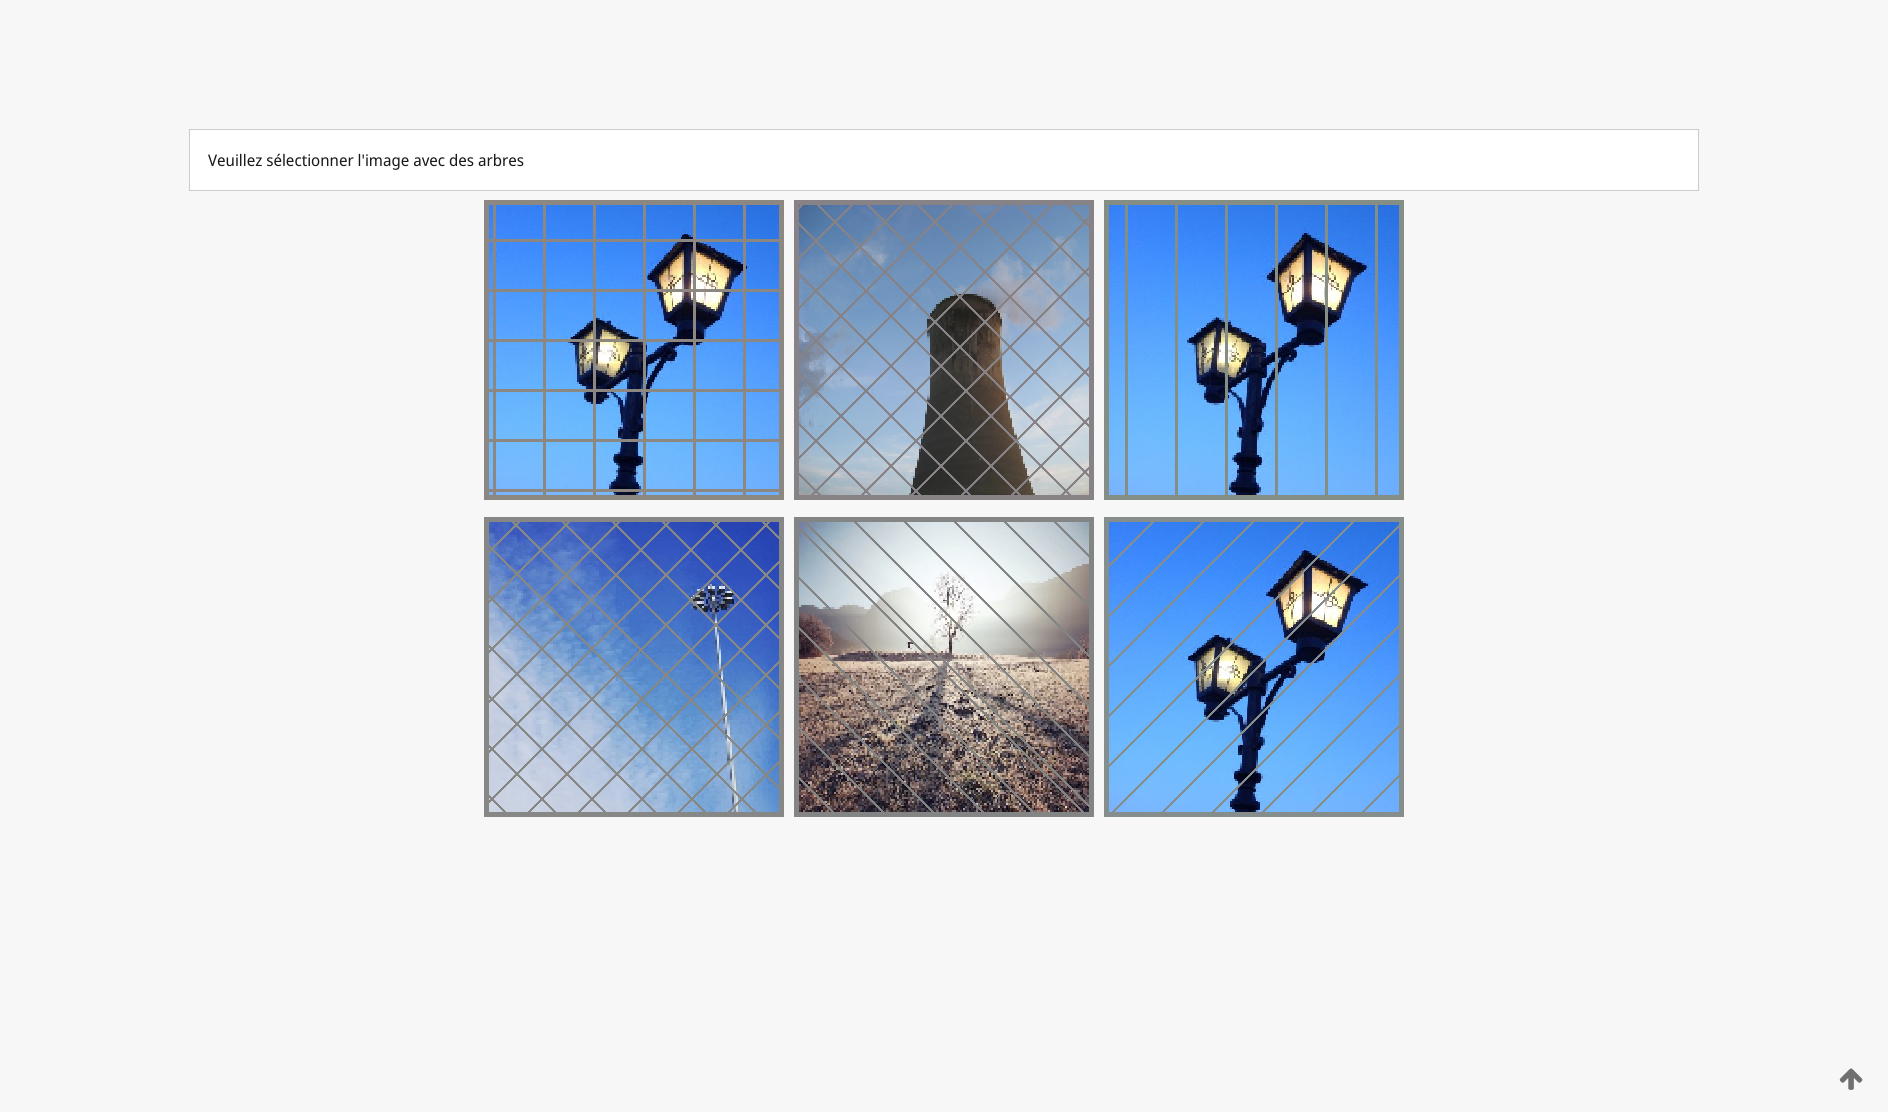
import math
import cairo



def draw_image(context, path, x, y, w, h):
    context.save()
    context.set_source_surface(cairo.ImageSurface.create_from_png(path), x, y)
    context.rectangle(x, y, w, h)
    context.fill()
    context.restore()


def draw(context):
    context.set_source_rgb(247 / 255, 247 / 255, 247 / 255)
    context.paint()
    context.set_source_rgb(1, 1, 1)
    context.rectangle(189.5, 129.5, 1509, 61)
    context.fill_preserve()
    context.set_source_rgb(204 / 255, 204 / 255, 204 / 255)
    context.set_line_width(1)
    context.stroke()
    draw_image(context, "images/1.png", 484, 200, 300, 300)
    draw_image(context, "images/2.png", 794, 200, 300, 300)
    draw_image(context, "images/3.png", 1104, 200, 300, 300)
    draw_image(context, "images/4.png", 484, 517, 300, 300)
    draw_image(context, "images/5.png", 794, 517, 300, 300)
    draw_image(context, "images/6.png", 1104, 517, 300, 300)
    draw_image(context, "images/7.png", 1839, 1068, 24, 22)
    context.select_font_face("Noto Sans Display")
    context.set_font_size(16)
    context.set_source_rgb(26 / 255, 26 / 255, 26 / 255)
    context.move_to(208, 166)
    context.show_text("Veuillez sélectionner l'image avec des arbres")


surface = cairo.ImageSurface(cairo.Format.RGB24, 1888, 1112)
context = cairo.Context(surface)
options = cairo.FontOptions()
options.set_hint_metrics(cairo.HintMetrics.OFF)
options.set_hint_style(cairo.HintStyle.NONE)
context.set_font_options(options)
context.set_miter_limit(4)
draw(context)
surface.write_to_png("out.png")
